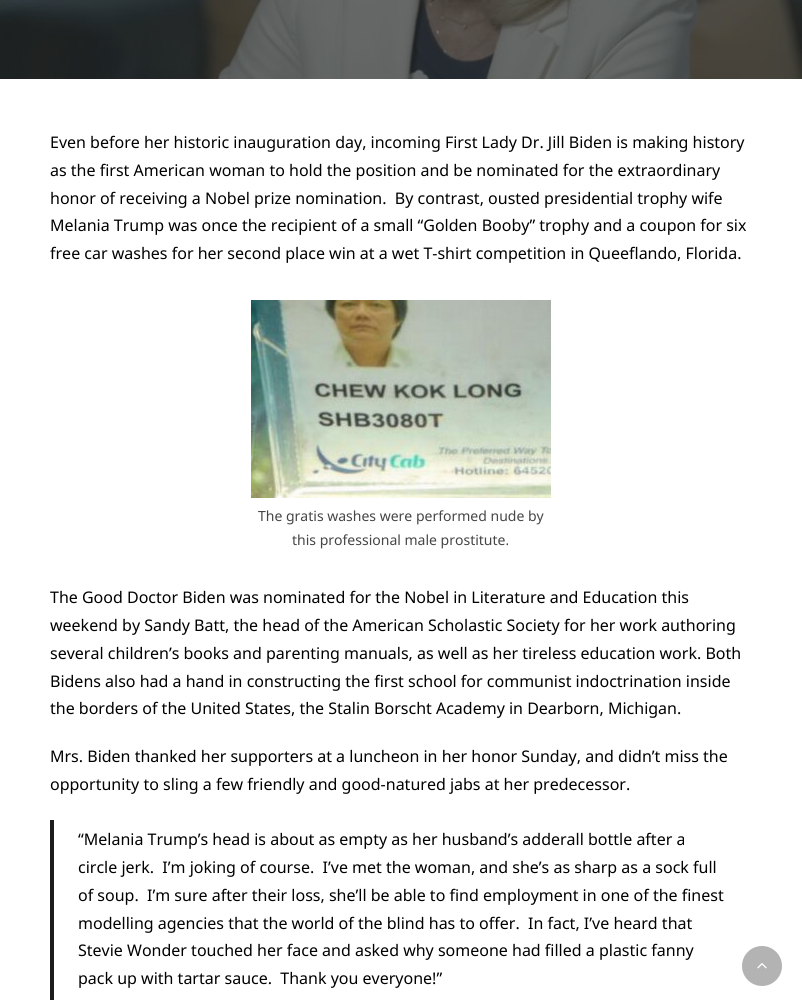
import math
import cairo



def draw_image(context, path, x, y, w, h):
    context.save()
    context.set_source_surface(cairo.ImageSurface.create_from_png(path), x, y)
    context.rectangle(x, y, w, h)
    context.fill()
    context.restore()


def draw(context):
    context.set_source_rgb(1, 1, 1)
    context.paint()
    draw_image(context, "images/1.png", 0, 0, 802, 79)
    draw_image(context, "images/2.png", 251, 300, 300, 198)
    context.set_source_rgb(28 / 255, 28 / 255, 28 / 255)
    context.rectangle(50, 820, 4, 180)
    context.fill()
    context.set_source_rgb(179 / 255, 179 / 255, 179 / 255)
    context.arc(762, 966, 20, 0, 2 * math.pi)
    context.fill()
    draw_image(context, "images/3.png", 757, 963, 10, 6)
    context.select_font_face("Noto Sans")
    context.set_font_size(16)
    context.set_source_rgb(0, 0, 0)
    context.move_to(50, 148)
    context.show_text("Even before her historic inauguration day, incoming First Lady Dr. Jill Biden is making history")
    context.move_to(50, 176)
    context.show_text("as the first American woman to hold the position and be nominated for the extraordinary")
    context.move_to(50, 204)
    context.show_text("honor of receiving a Nobel prize nomination.  By contrast, ousted presidential trophy wife")
    context.move_to(50, 231)
    context.show_text("Melania Trump was once the recipient of a small “Golden Booby” trophy and a coupon for six")
    context.move_to(50, 259)
    context.show_text("free car washes for her second place win at a wet T-shirt competition in Queeflando, Florida.")
    context.set_font_size(14)
    context.set_source_rgb(69 / 255, 69 / 255, 69 / 255)
    context.move_to(258, 521)
    context.show_text("The gratis washes were performed nude by")
    context.move_to(292, 545)
    context.show_text("this professional male prostitute.")
    context.set_font_size(16)
    context.set_source_rgb(0, 0, 0)
    context.move_to(50, 603)
    context.show_text("The Good Doctor Biden was nominated for the Nobel in Literature and Education this")
    context.move_to(50, 631)
    context.show_text("weekend by Sandy Batt, the head of the American Scholastic Society for her work authoring")
    context.move_to(50, 659)
    context.show_text("several children’s books and parenting manuals, as well as her tireless education work. Both")
    context.move_to(50, 687)
    context.show_text("Bidens also had a hand in constructing the first school for communist indoctrination inside")
    context.move_to(50, 714)
    context.show_text("the borders of the United States, the Stalin Borscht Academy in Dearborn, Michigan.")
    context.move_to(50, 762)
    context.show_text("Mrs. Biden thanked her supporters at a luncheon in her honor Sunday, and didn’t miss the")
    context.move_to(50, 790)
    context.show_text("opportunity to sling a few friendly and good-natured jabs at her predecessor.")
    context.move_to(78, 845)
    context.show_text("“Melania Trump’s head is about as empty as her husband’s adderall bottle after a")
    context.move_to(78, 873)
    context.show_text("circle jerk.  I’m joking of course.  I’ve met the woman, and she’s as sharp as a sock full")
    context.move_to(78, 901)
    context.show_text("of soup.  I’m sure after their loss, she’ll be able to find employment in one of the finest")
    context.move_to(78, 929)
    context.show_text("modelling agencies that the world of the blind has to offer.  In fact, I’ve heard that")
    context.move_to(78, 956)
    context.show_text("Stevie Wonder touched her face and asked why someone had filled a plastic fanny")
    context.move_to(78, 984)
    context.show_text("pack up with tartar sauce.  Thank you everyone!”")


surface = cairo.ImageSurface(cairo.Format.RGB24, 802, 1001)
context = cairo.Context(surface)
options = cairo.FontOptions()
options.set_hint_metrics(cairo.HintMetrics.OFF)
options.set_hint_style(cairo.HintStyle.NONE)
context.set_font_options(options)
context.set_miter_limit(4)
draw(context)
surface.write_to_png("out.png")
